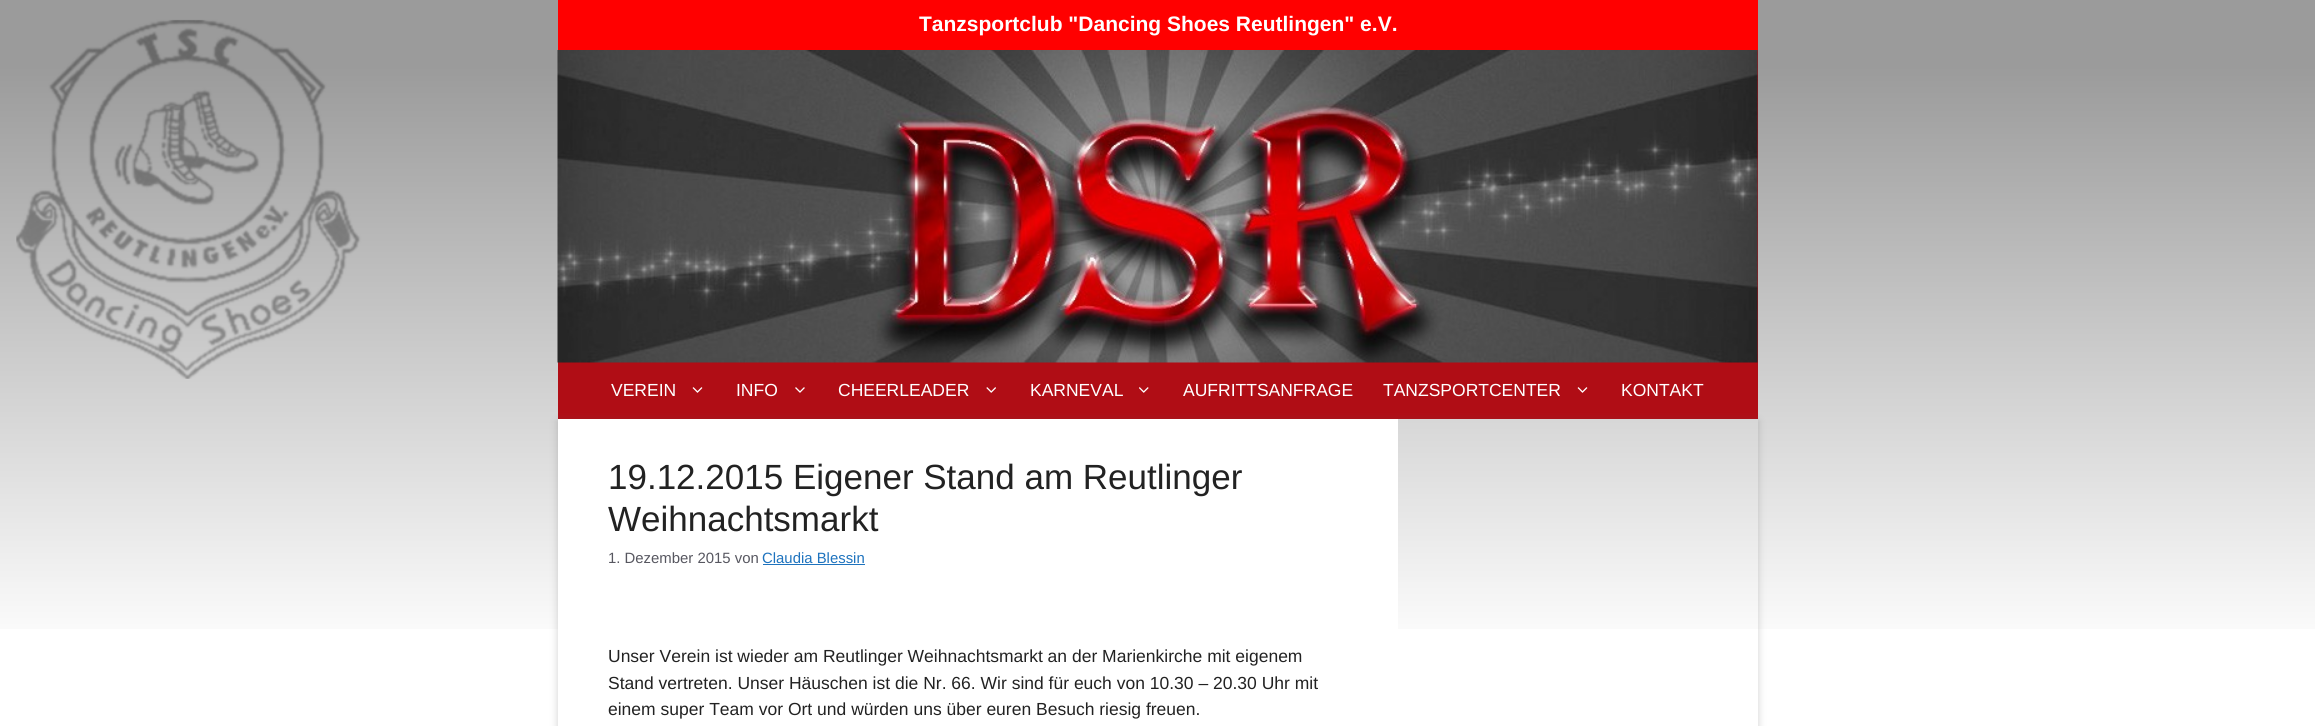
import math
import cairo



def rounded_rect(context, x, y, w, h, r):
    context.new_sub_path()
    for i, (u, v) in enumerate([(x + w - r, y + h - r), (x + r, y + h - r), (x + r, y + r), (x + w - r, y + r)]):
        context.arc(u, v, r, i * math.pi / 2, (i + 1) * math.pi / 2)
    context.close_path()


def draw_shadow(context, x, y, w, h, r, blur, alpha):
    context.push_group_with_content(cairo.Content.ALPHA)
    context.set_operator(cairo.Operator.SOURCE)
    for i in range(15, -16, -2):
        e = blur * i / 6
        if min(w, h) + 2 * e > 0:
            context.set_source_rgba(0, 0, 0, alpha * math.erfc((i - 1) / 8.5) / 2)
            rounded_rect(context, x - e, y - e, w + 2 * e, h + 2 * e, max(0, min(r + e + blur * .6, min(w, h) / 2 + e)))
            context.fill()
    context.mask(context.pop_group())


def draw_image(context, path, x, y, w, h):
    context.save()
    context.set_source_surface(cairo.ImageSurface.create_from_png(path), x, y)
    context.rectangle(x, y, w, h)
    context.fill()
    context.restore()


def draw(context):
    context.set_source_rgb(1, 1, 1)
    context.paint()
    draw_image(context, "images/1.png", 0, 0, 2315, 629)
    context.set_source_rgb(1, 0, 0)
    context.rectangle(558, 0, 1200, 50)
    context.fill()
    context.set_source_rgb(176 / 255, 13 / 255, 21 / 255)
    context.rectangle(558, 50, 1200, 369)
    context.fill()
    draw_image(context, "images/2.png", 557, 50, 1201, 313)
    draw_image(context, "images/3.png", 692, 387, 11, 6)
    draw_image(context, "images/4.png", 795, 387, 10, 6)
    draw_image(context, "images/5.png", 986, 387, 10, 6)
    draw_image(context, "images/6.png", 1139, 387, 10, 6)
    draw_image(context, "images/3.png", 1577, 387, 11, 6)
    context.save()
    context.set_fill_rule(cairo.FillRule.EVEN_ODD)
    context.new_path()
    context.move_to(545, 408)
    context.line_to(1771, 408)
    context.line_to(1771, 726)
    context.line_to(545, 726)
    context.close_path()
    context.move_to(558, 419)
    context.line_to(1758, 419)
    context.line_to(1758, 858)
    context.line_to(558, 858)
    context.close_path()
    context.clip()
    context.set_source_rgb(100 / 255, 100 / 255, 100 / 255)
    draw_shadow(context, 558, 421, 1200, 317, 0, 4, 0.3)
    context.restore()
    context.set_source_rgb(1, 1, 1)
    context.rectangle(558, 419, 840, 210)
    context.fill()
    context.set_source_rgb(30 / 255, 115 / 255, 190 / 255)
    context.rectangle(763, 564, 102, 1)
    context.fill()
    context.select_font_face("Liberation Sans", cairo.FontSlant.NORMAL, cairo.FontWeight.BOLD)
    context.set_font_size(21)
    context.set_source_rgb(1, 1, 1)
    context.move_to(919, 31)
    context.show_text("Tanzsportclub \"Dancing Shoes Reutlingen\" e.V.")
    context.select_font_face("Liberation Sans")
    context.set_font_size(17.5)
    context.move_to(611, 396)
    context.show_text("VEREIN")
    context.move_to(736, 396)
    context.show_text("INFO")
    context.move_to(838, 396)
    context.show_text("CHEERLEADER")
    context.move_to(1030, 396)
    context.show_text("KARNEVAL")
    context.move_to(1183, 396)
    context.show_text("AUFRITTSANFRAGE")
    context.move_to(1383, 396)
    context.show_text("TANZSPORTCENTER")
    context.move_to(1621, 396)
    context.show_text("KONTAKT")
    context.set_font_size(35)
    context.set_source_rgb(34 / 255, 34 / 255, 34 / 255)
    context.move_to(608, 489)
    context.show_text("19.12.2015 Eigener Stand am Reutlinger")
    context.move_to(608, 531)
    context.show_text("Weihnachtsmarkt")
    context.set_font_size(14.9)
    context.set_source_rgb(87 / 255, 87 / 255, 96 / 255)
    context.move_to(608, 563)
    context.show_text("1. Dezember 2015 von")
    context.set_source_rgb(30 / 255, 115 / 255, 190 / 255)
    context.move_to(762, 563)
    context.show_text("Claudia Blessin")
    context.set_font_size(17.5)
    context.set_source_rgb(34 / 255, 34 / 255, 34 / 255)
    context.move_to(608, 662)
    context.show_text("Unser Verein ist wieder am Reutlinger Weihnachtsmarkt an der Marienkirche mit eigenem")
    context.move_to(608, 689)
    context.show_text("Stand vertreten. Unser Häuschen ist die Nr. 66. Wir sind für euch von 10.30 – 20.30 Uhr mit")
    context.move_to(608, 715)
    context.show_text("einem super Team vor Ort und würden uns über euren Besuch riesig freuen.")


surface = cairo.ImageSurface(cairo.Format.RGB24, 2315, 726)
context = cairo.Context(surface)
options = cairo.FontOptions()
options.set_hint_metrics(cairo.HintMetrics.OFF)
options.set_hint_style(cairo.HintStyle.NONE)
context.set_font_options(options)
context.set_miter_limit(4)
draw(context)
surface.write_to_png("out.png")
